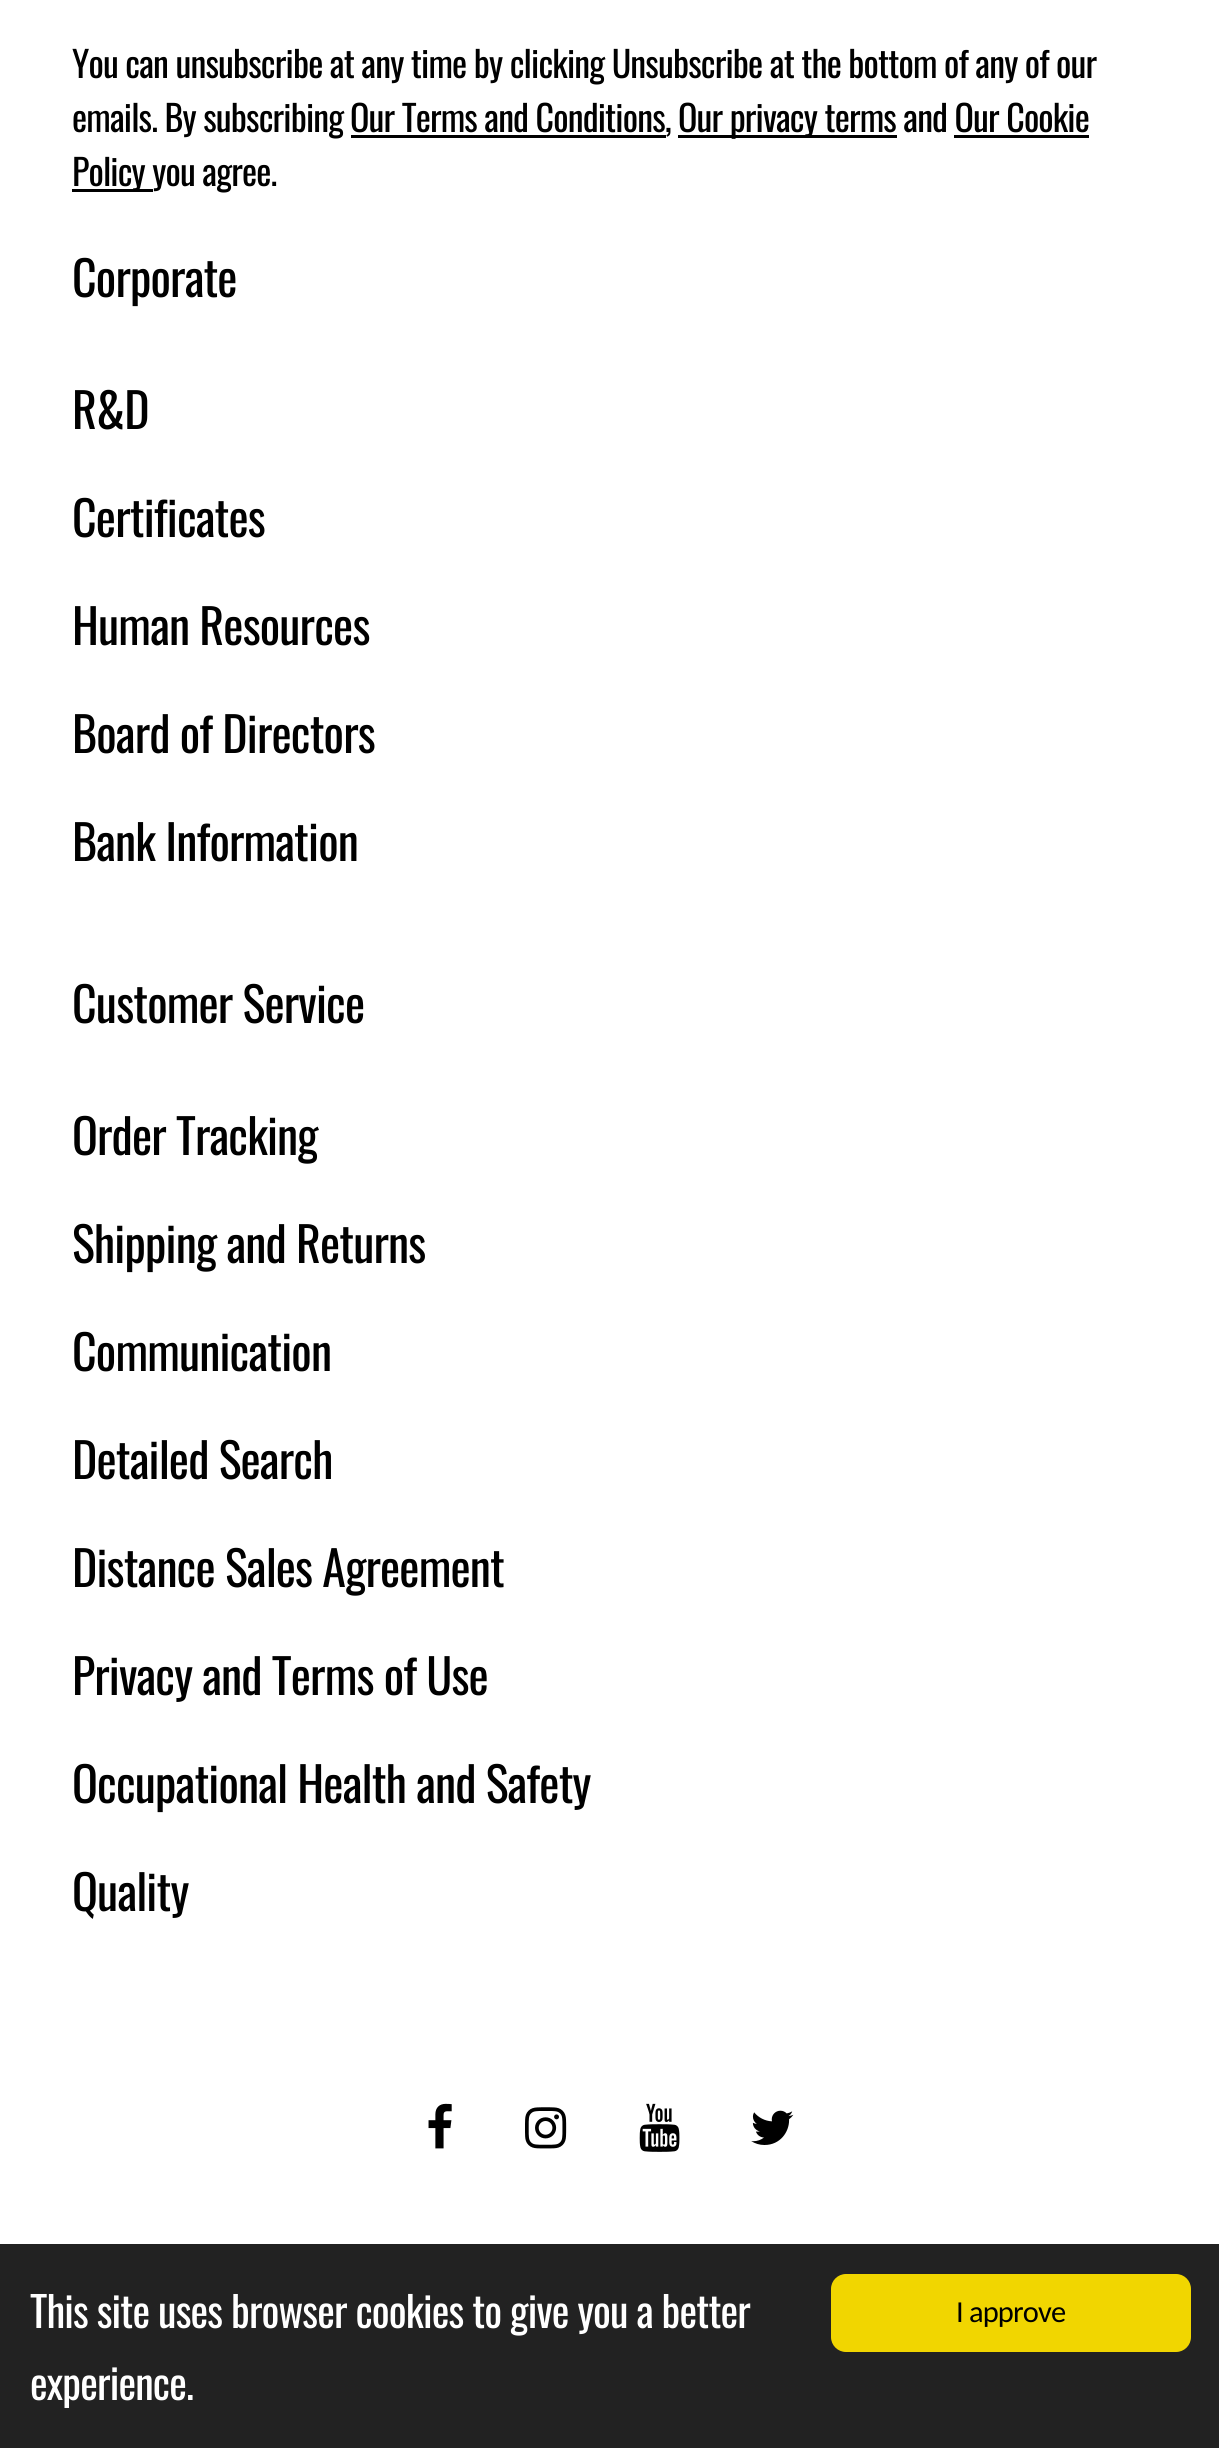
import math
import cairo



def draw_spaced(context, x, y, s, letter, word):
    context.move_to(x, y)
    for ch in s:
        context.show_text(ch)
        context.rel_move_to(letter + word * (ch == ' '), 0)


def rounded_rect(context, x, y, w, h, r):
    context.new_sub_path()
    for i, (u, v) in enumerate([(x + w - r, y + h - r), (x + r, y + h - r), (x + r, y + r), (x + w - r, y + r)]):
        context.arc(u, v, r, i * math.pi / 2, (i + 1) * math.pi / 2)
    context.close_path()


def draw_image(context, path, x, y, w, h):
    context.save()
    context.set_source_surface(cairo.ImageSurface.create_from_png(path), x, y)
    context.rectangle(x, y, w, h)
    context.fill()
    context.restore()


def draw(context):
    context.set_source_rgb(1, 1, 1)
    context.paint()
    context.set_source_rgb(0, 0, 0)
    context.rectangle(351, 135, 315, 3)
    context.fill()
    context.rectangle(678, 135, 219, 3)
    context.fill()
    context.rectangle(954, 135, 135, 3)
    context.fill()
    context.rectangle(72, 189, 81, 3)
    context.fill()
    draw_image(context, "images/1.png", 428, 2103, 24, 46)
    draw_image(context, "images/2.png", 525, 2107, 42, 42)
    draw_image(context, "images/3.png", 639, 2103, 41, 49)
    draw_image(context, "images/4.png", 751, 2110, 43, 35)
    context.set_source_rgb(34 / 255, 34 / 255, 34 / 255)
    context.rectangle(0, 2244, 1219, 204)
    context.fill()
    context.set_source_rgb(241 / 255, 214 / 255, 0)
    rounded_rect(context, 831, 2274, 360, 78, 15)
    context.fill()
    context.select_font_face("Oswald")
    context.set_font_size(36)
    context.set_source_rgb(0, 0, 0)
    draw_spaced(context, 72, 78, "You can unsubscribe at any time by clicking Unsubscribe at the bottom of any of our", -0.85, 0)
    draw_spaced(context, 72, 132, "emails. By subscribing", -0.85, 0)
    draw_spaced(context, 350, 132, "Our Terms and Conditions", -0.85, 0)
    draw_spaced(context, 665, 132, ",", -0.85, 0)
    draw_spaced(context, 678, 132, "Our privacy terms and Our Cookie", -0.85, 0)
    draw_spaced(context, 72, 186, "Policy you agree.", -0.85, 0)
    context.set_font_size(48)
    draw_spaced(context, 72, 297, "Corporate", -0.85, 0)
    draw_spaced(context, 72, 429, "R&D", -0.85, 0)
    draw_spaced(context, 72, 537, "Certificates", -0.85, 0)
    draw_spaced(context, 72, 645, "Human Resources", -0.85, 0)
    draw_spaced(context, 72, 753, "Board of Directors", -0.85, 0)
    draw_spaced(context, 72, 861, "Bank Information", -0.85, 0)
    draw_spaced(context, 72, 1023, "Customer Service", -0.85, 0)
    draw_spaced(context, 72, 1155, "Order Tracking", -0.85, 0)
    draw_spaced(context, 72, 1263, "Shipping and Returns", -0.85, 0)
    draw_spaced(context, 72, 1371, "Communication", -0.85, 0)
    draw_spaced(context, 72, 1479, "Detailed Search", -0.85, 0)
    draw_spaced(context, 72, 1587, "Distance Sales Agreement", -0.85, 0)
    draw_spaced(context, 72, 1695, "Privacy and Terms of Use", -0.85, 0)
    draw_spaced(context, 72, 1803, "Occupational Health and Safety", -0.85, 0)
    draw_spaced(context, 72, 1911, "Quality", -0.85, 0)
    context.set_font_size(42)
    context.set_source_rgb(1, 1, 1)
    draw_spaced(context, 30, 2328, "This site uses browser cookies to give you a better", -0.85, 0)
    draw_spaced(context, 30, 2400, "experience.", -0.85, 0)
    context.select_font_face("Carlito")
    context.set_font_size(30.5)
    context.set_source_rgb(0, 0, 0)
    draw_spaced(context, 956, 2322, "I approve", -0.85, 0)


surface = cairo.ImageSurface(cairo.Format.RGB24, 1219, 2448)
context = cairo.Context(surface)
options = cairo.FontOptions()
options.set_hint_metrics(cairo.HintMetrics.OFF)
options.set_hint_style(cairo.HintStyle.NONE)
context.set_font_options(options)
context.set_miter_limit(4)
draw(context)
surface.write_to_png("out.png")
